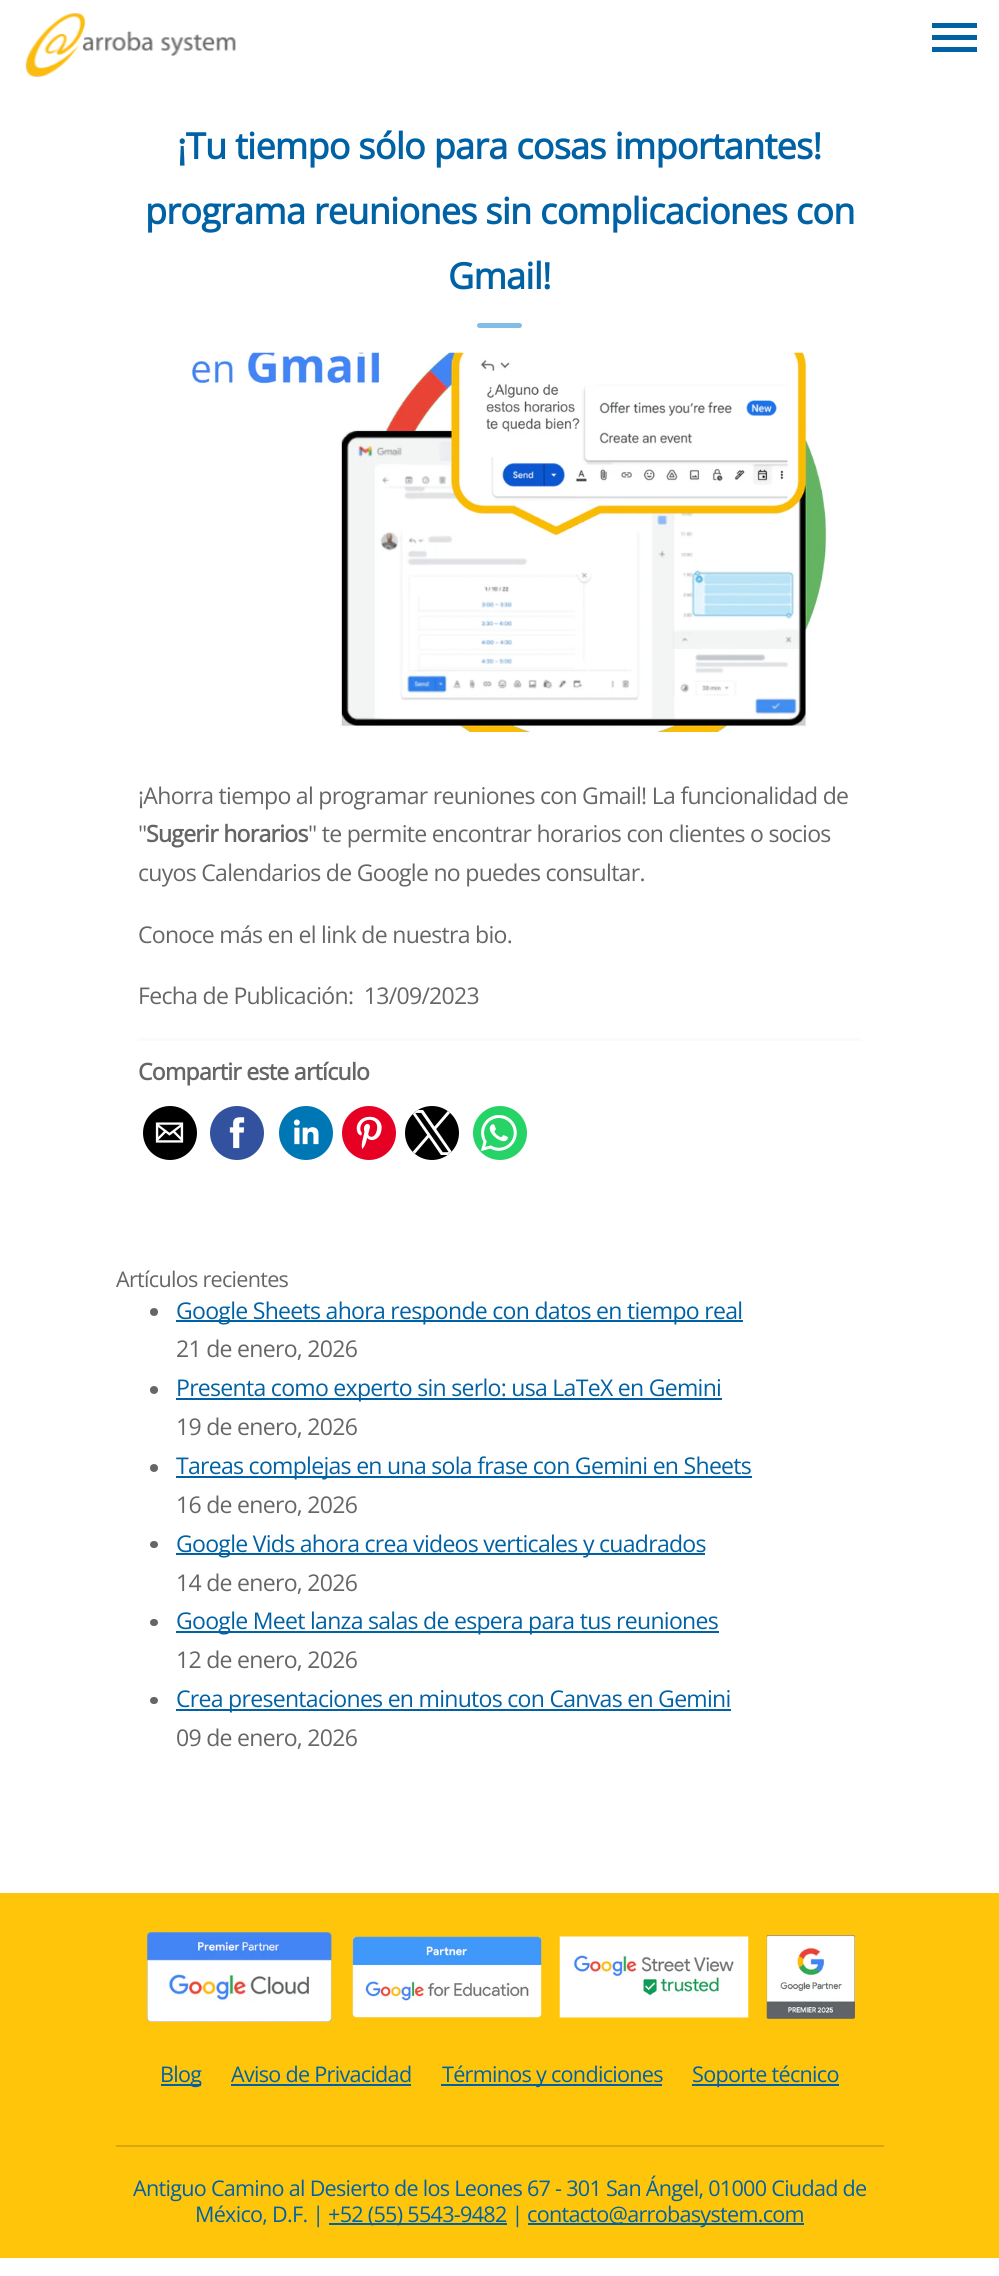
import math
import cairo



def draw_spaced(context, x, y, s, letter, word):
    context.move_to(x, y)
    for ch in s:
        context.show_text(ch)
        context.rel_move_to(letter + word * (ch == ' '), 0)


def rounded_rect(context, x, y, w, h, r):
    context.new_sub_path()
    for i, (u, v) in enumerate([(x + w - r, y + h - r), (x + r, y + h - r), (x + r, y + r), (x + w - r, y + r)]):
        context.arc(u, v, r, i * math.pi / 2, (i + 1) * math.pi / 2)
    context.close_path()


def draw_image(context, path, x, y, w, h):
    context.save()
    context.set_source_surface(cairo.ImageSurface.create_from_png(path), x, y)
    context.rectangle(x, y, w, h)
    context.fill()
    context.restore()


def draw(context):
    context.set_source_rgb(1, 1, 1)
    context.paint()
    draw_image(context, "images/1.png", 25, 13, 211, 64)
    context.set_source_rgb(0, 98 / 255, 165 / 255)
    context.rectangle(932, 23, 45, 5)
    context.fill()
    context.rectangle(932, 35, 45, 5)
    context.fill()
    context.rectangle(932, 47, 45, 5)
    context.fill()
    context.set_source_rgb(129 / 255, 190 / 255, 231 / 255)
    rounded_rect(context, 477, 323, 45, 5, 2.5)
    context.fill()
    draw_image(context, "images/2.png", 191, 352, 637, 380)
    context.set_source_rgb(251 / 255, 251 / 255, 251 / 255)
    context.rectangle(138, 1038, 723, 3)
    context.fill()
    context.set_source_rgb(0, 0, 0)
    context.arc(170, 1133, 27, 0, 2 * math.pi)
    context.fill()
    draw_image(context, "images/3.png", 155, 1122, 29, 21)
    context.set_source_rgb(50 / 255, 82 / 255, 159 / 255)
    context.arc(237, 1133, 27, 0, 2 * math.pi)
    context.fill()
    draw_image(context, "images/4.png", 229, 1117, 16, 32)
    context.set_source_rgb(0, 119 / 255, 181 / 255)
    context.arc(306, 1133, 27, 0, 2 * math.pi)
    context.fill()
    draw_image(context, "images/5.png", 293, 1119, 26, 26)
    context.set_source_rgb(230 / 255, 0, 35 / 255)
    context.arc(369, 1133, 27, 0, 2 * math.pi)
    context.fill()
    draw_image(context, "images/6.png", 356, 1116, 26, 33)
    context.set_source_rgb(0, 0, 0)
    context.arc(432, 1133, 27, 0, 2 * math.pi)
    context.fill()
    draw_image(context, "images/7.png", 412, 1110, 40, 45)
    context.set_source_rgb(37 / 255, 211 / 255, 102 / 255)
    context.arc(500, 1133, 27, 0, 2 * math.pi)
    context.fill()
    draw_image(context, "images/8.png", 481, 1114, 36, 37)
    context.set_source_rgb(102 / 255, 102 / 255, 102 / 255)
    context.arc(154, 1312, 4, 0, 2 * math.pi)
    context.fill()
    context.set_source_rgb(0, 98 / 255, 165 / 255)
    context.rectangle(176, 1320, 567, 2)
    context.fill()
    context.set_source_rgb(102 / 255, 102 / 255, 102 / 255)
    context.arc(154, 1390, 4, 0, 2 * math.pi)
    context.fill()
    context.set_source_rgb(0, 98 / 255, 165 / 255)
    context.rectangle(176, 1398, 546, 2)
    context.fill()
    context.set_source_rgb(102 / 255, 102 / 255, 102 / 255)
    context.arc(154, 1468, 4, 0, 2 * math.pi)
    context.fill()
    context.set_source_rgb(0, 98 / 255, 165 / 255)
    context.rectangle(176, 1476, 576, 2)
    context.fill()
    context.set_source_rgb(102 / 255, 102 / 255, 102 / 255)
    rounded_rect(context, 150, 1541, 8, 7, 3.5)
    context.fill()
    context.set_source_rgb(0, 98 / 255, 165 / 255)
    context.rectangle(176, 1553, 529, 2)
    context.fill()
    context.set_source_rgb(102 / 255, 102 / 255, 102 / 255)
    rounded_rect(context, 150, 1619, 8, 7, 3.5)
    context.fill()
    context.set_source_rgb(0, 98 / 255, 165 / 255)
    context.rectangle(176, 1631, 543, 2)
    context.fill()
    context.set_source_rgb(102 / 255, 102 / 255, 102 / 255)
    rounded_rect(context, 150, 1697, 8, 7, 3.5)
    context.fill()
    context.set_source_rgb(0, 98 / 255, 165 / 255)
    context.rectangle(176, 1709, 555, 2)
    context.fill()
    context.set_source_rgb(1, 197 / 255, 10 / 255)
    context.rectangle(0, 1893, 999, 365)
    context.fill()
    draw_image(context, "images/9.png", 147, 1932, 185, 90)
    draw_image(context, "images/10.png", 352, 1936, 190, 82)
    draw_image(context, "images/11.png", 559, 1936, 190, 82)
    draw_image(context, "images/12.png", 766, 1935, 89, 84)
    context.set_source_rgb(0, 98 / 255, 165 / 255)
    context.rectangle(161, 2084, 40, 2)
    context.fill()
    context.rectangle(231, 2084, 180, 2)
    context.fill()
    context.rectangle(441, 2084, 221, 2)
    context.fill()
    context.rectangle(692, 2084, 147, 2)
    context.fill()
    context.set_source_rgb(217 / 255, 167 / 255, 9 / 255)
    context.rectangle(116, 2145, 768, 2)
    context.fill()
    context.set_source_rgb(0, 98 / 255, 165 / 255)
    context.rectangle(329, 2223, 178, 2)
    context.fill()
    context.rectangle(528, 2223, 276, 2)
    context.fill()
    context.select_font_face("Open Sans", cairo.FontSlant.NORMAL, cairo.FontWeight.BOLD)
    context.set_font_size(36)
    draw_spaced(context, 177, 159, "¡Tu tiempo sólo para cosas importantes!", -0.72, 0)
    draw_spaced(context, 145, 224, "programa reuniones sin complicaciones con", -0.72, 0)
    draw_spaced(context, 448, 289, "Gmail!", -0.72, 0)
    context.select_font_face("Open Sans")
    context.set_font_size(23.05)
    context.set_source_rgb(102 / 255, 102 / 255, 102 / 255)
    draw_spaced(context, 138, 804, "¡Ahorra tiempo al programar reuniones con Gmail! La funcionalidad de", -0.72, 0)
    draw_spaced(context, 138, 842, "\"", -0.72, 0)
    context.select_font_face("Open Sans", cairo.FontSlant.NORMAL, cairo.FontWeight.BOLD)
    draw_spaced(context, 146, 842, "Sugerir horarios", -0.72, 0)
    context.select_font_face("Open Sans")
    draw_spaced(context, 308, 842, "\" te permite encontrar horarios con clientes o socios", -0.72, 0)
    draw_spaced(context, 138, 881, "cuyos Calendarios de Google no puedes consultar.", -0.72, 0)
    draw_spaced(context, 138, 943, "Conoce más en el link de nuestra bio.", -0.72, 0)
    draw_spaced(context, 138, 1004, "Fecha de Publicación:  13/09/2023", -0.72, 0)
    context.select_font_face("Open Sans", cairo.FontSlant.NORMAL, cairo.FontWeight.BOLD)
    draw_spaced(context, 138, 1080, "Compartir este artículo", -0.72, 0)
    context.select_font_face("Open Sans")
    context.set_font_size(21.6)
    draw_spaced(context, 116, 1287, "Artículos recientes", -0.72, 0)
    context.set_font_size(23.05)
    context.set_source_rgb(0, 98 / 255, 165 / 255)
    draw_spaced(context, 176, 1319, "Google Sheets ahora responde con datos en tiempo real", -0.72, 0)
    context.set_source_rgb(102 / 255, 102 / 255, 102 / 255)
    draw_spaced(context, 176, 1357, "21 de enero, 2026", -0.72, 0)
    context.set_source_rgb(0, 98 / 255, 165 / 255)
    draw_spaced(context, 176, 1396, "Presenta como experto sin serlo: usa LaTeX en Gemini", -0.72, 0)
    context.set_source_rgb(102 / 255, 102 / 255, 102 / 255)
    draw_spaced(context, 176, 1435, "19 de enero, 2026", -0.72, 0)
    context.set_source_rgb(0, 98 / 255, 165 / 255)
    draw_spaced(context, 176, 1474, "Tareas complejas en una sola frase con Gemini en Sheets", -0.72, 0)
    context.set_source_rgb(102 / 255, 102 / 255, 102 / 255)
    draw_spaced(context, 176, 1513, "16 de enero, 2026", -0.72, 0)
    context.set_source_rgb(0, 98 / 255, 165 / 255)
    draw_spaced(context, 176, 1552, "Google Vids ahora crea videos verticales y cuadrados", -0.72, 0)
    context.set_source_rgb(102 / 255, 102 / 255, 102 / 255)
    draw_spaced(context, 176, 1591, "14 de enero, 2026", -0.72, 0)
    context.set_source_rgb(0, 98 / 255, 165 / 255)
    draw_spaced(context, 176, 1629, "Google Meet lanza salas de espera para tus reuniones", -0.72, 0)
    context.set_source_rgb(102 / 255, 102 / 255, 102 / 255)
    draw_spaced(context, 176, 1668, "12 de enero, 2026", -0.72, 0)
    context.set_source_rgb(0, 98 / 255, 165 / 255)
    draw_spaced(context, 176, 1707, "Crea presentaciones en minutos con Canvas en Gemini", -0.72, 0)
    context.set_source_rgb(102 / 255, 102 / 255, 102 / 255)
    draw_spaced(context, 176, 1746, "09 de enero, 2026", -0.72, 0)
    context.set_font_size(21.6)
    context.set_source_rgb(0, 98 / 255, 165 / 255)
    draw_spaced(context, 160, 2082, "Blog", -0.72, 0)
    draw_spaced(context, 231, 2082, "Aviso de Privacidad", -0.72, 0)
    draw_spaced(context, 442, 2082, "Términos y condiciones", -0.72, 0)
    draw_spaced(context, 692, 2082, "Soporte técnico", -0.72, 0)
    draw_spaced(context, 133, 2196, "Antiguo Camino al Desierto de los Leones 67 - 301 San Ángel, 01000 Ciudad de", -0.72, 0)
    draw_spaced(context, 195, 2222, "México, D.F. |", -0.72, 0)
    draw_spaced(context, 328, 2222, "+52 (55) 5543-9482 |", -0.72, 0)
    draw_spaced(context, 527, 2222, "contacto@arrobasystem.com", -0.72, 0)


surface = cairo.ImageSurface(cairo.Format.RGB24, 999, 2276)
context = cairo.Context(surface)
options = cairo.FontOptions()
options.set_hint_metrics(cairo.HintMetrics.OFF)
options.set_hint_style(cairo.HintStyle.NONE)
context.set_font_options(options)
context.set_miter_limit(4)
draw(context)
surface.write_to_png("out.png")
